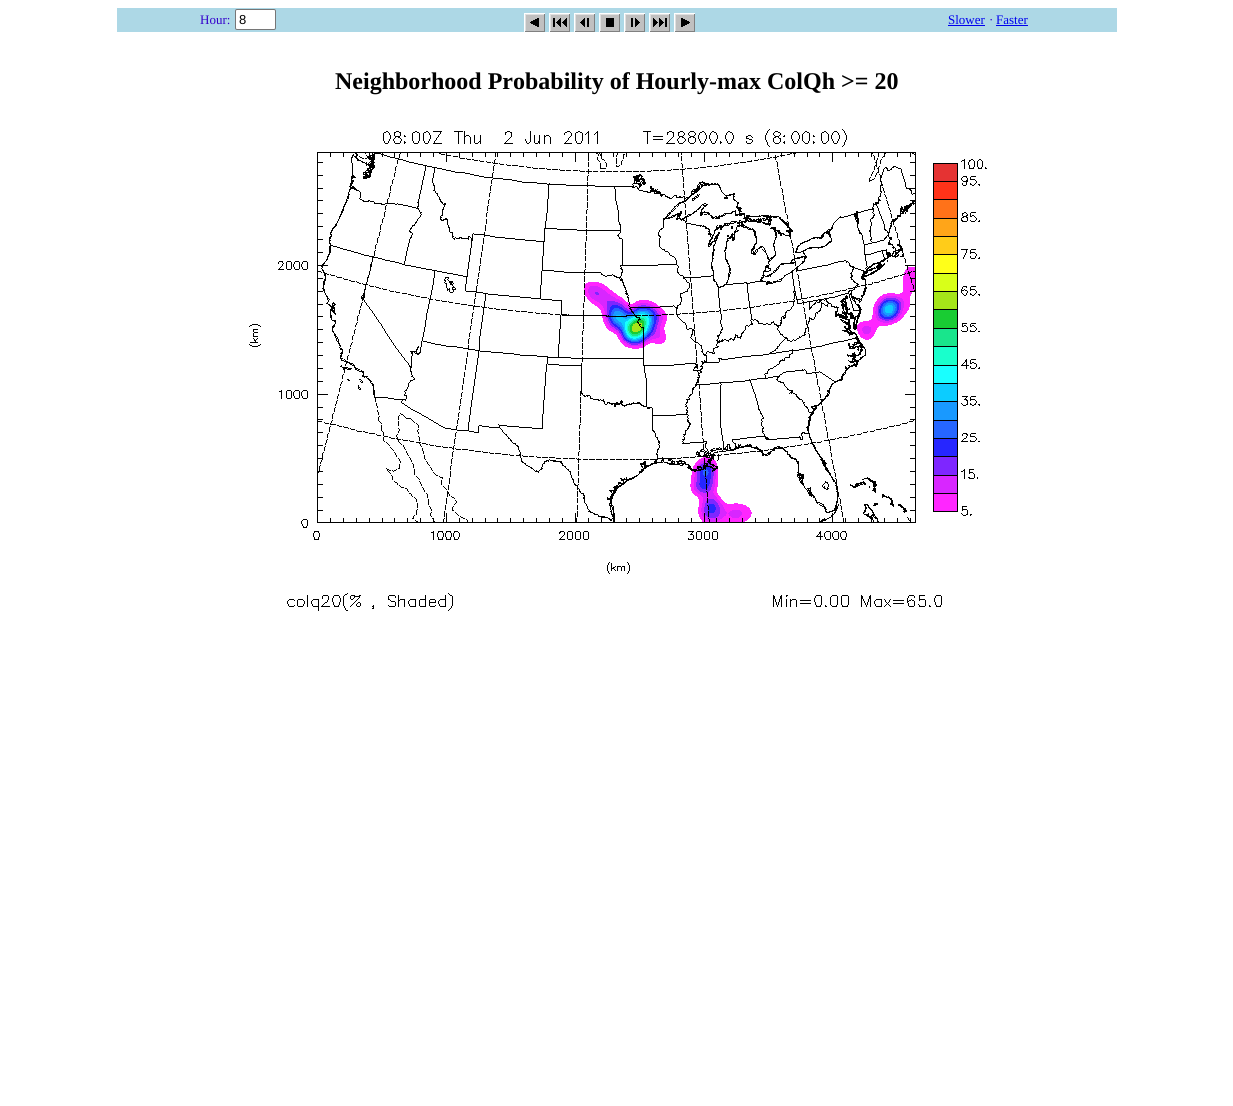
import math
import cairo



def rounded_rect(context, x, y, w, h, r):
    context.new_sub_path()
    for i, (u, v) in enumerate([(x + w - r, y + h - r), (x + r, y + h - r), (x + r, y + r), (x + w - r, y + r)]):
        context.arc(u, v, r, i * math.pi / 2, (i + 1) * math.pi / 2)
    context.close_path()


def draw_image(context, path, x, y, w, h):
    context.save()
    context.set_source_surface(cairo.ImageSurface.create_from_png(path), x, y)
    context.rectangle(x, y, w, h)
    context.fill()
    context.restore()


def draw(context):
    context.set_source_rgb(1, 1, 1)
    context.paint()
    context.set_source_rgb(173 / 255, 216 / 255, 230 / 255)
    context.rectangle(117, 8, 1000, 24)
    context.fill()
    context.set_source_rgb(1, 1, 1)
    rounded_rect(context, 235.5, 9.5, 40, 20, 1.5)
    context.fill_preserve()
    context.set_source_rgb(118 / 255, 118 / 255, 118 / 255)
    context.set_line_width(1)
    context.stroke()
    draw_image(context, "images/1.png", 524, 13, 21, 19)
    draw_image(context, "images/2.png", 549, 13, 21, 19)
    draw_image(context, "images/3.png", 574, 13, 21, 19)
    draw_image(context, "images/4.png", 599, 13, 21, 19)
    draw_image(context, "images/5.png", 624, 13, 21, 19)
    draw_image(context, "images/6.png", 649, 13, 21, 19)
    draw_image(context, "images/7.png", 674, 13, 21, 19)
    context.set_source_rgb(0, 0, 238 / 255)
    context.rectangle(948, 25, 37, 1)
    context.fill()
    context.rectangle(996, 25, 32, 1)
    context.fill()
    draw_image(context, "images/8.png", 249, 129, 738, 482)
    context.select_font_face("Liberation Serif")
    context.set_font_size(13)
    context.set_source_rgb(51 / 255, 0, 204 / 255)
    context.move_to(200, 24)
    context.show_text("Hour:")
    context.select_font_face("Liberation Sans")
    context.set_source_rgb(0, 0, 0)
    context.move_to(239, 24)
    context.show_text("8")
    context.select_font_face("Liberation Serif")
    context.set_source_rgb(0, 0, 238 / 255)
    context.move_to(948, 24)
    context.show_text("Slower")
    context.set_source_rgb(51 / 255, 0, 204 / 255)
    context.move_to(989, 24)
    context.show_text("·")
    context.set_source_rgb(0, 0, 238 / 255)
    context.move_to(996, 24)
    context.show_text("Faster")
    context.select_font_face("Liberation Serif", cairo.FontSlant.NORMAL, cairo.FontWeight.BOLD)
    context.set_font_size(24)
    context.set_source_rgb(0, 0, 0)
    context.move_to(335, 89)
    context.show_text("Neighborhood Probability of Hourly-max ColQh >= 20")


surface = cairo.ImageSurface(cairo.Format.RGB24, 1233, 1106)
context = cairo.Context(surface)
options = cairo.FontOptions()
options.set_hint_metrics(cairo.HintMetrics.OFF)
options.set_hint_style(cairo.HintStyle.NONE)
context.set_font_options(options)
context.set_miter_limit(4)
draw(context)
surface.write_to_png("out.png")
